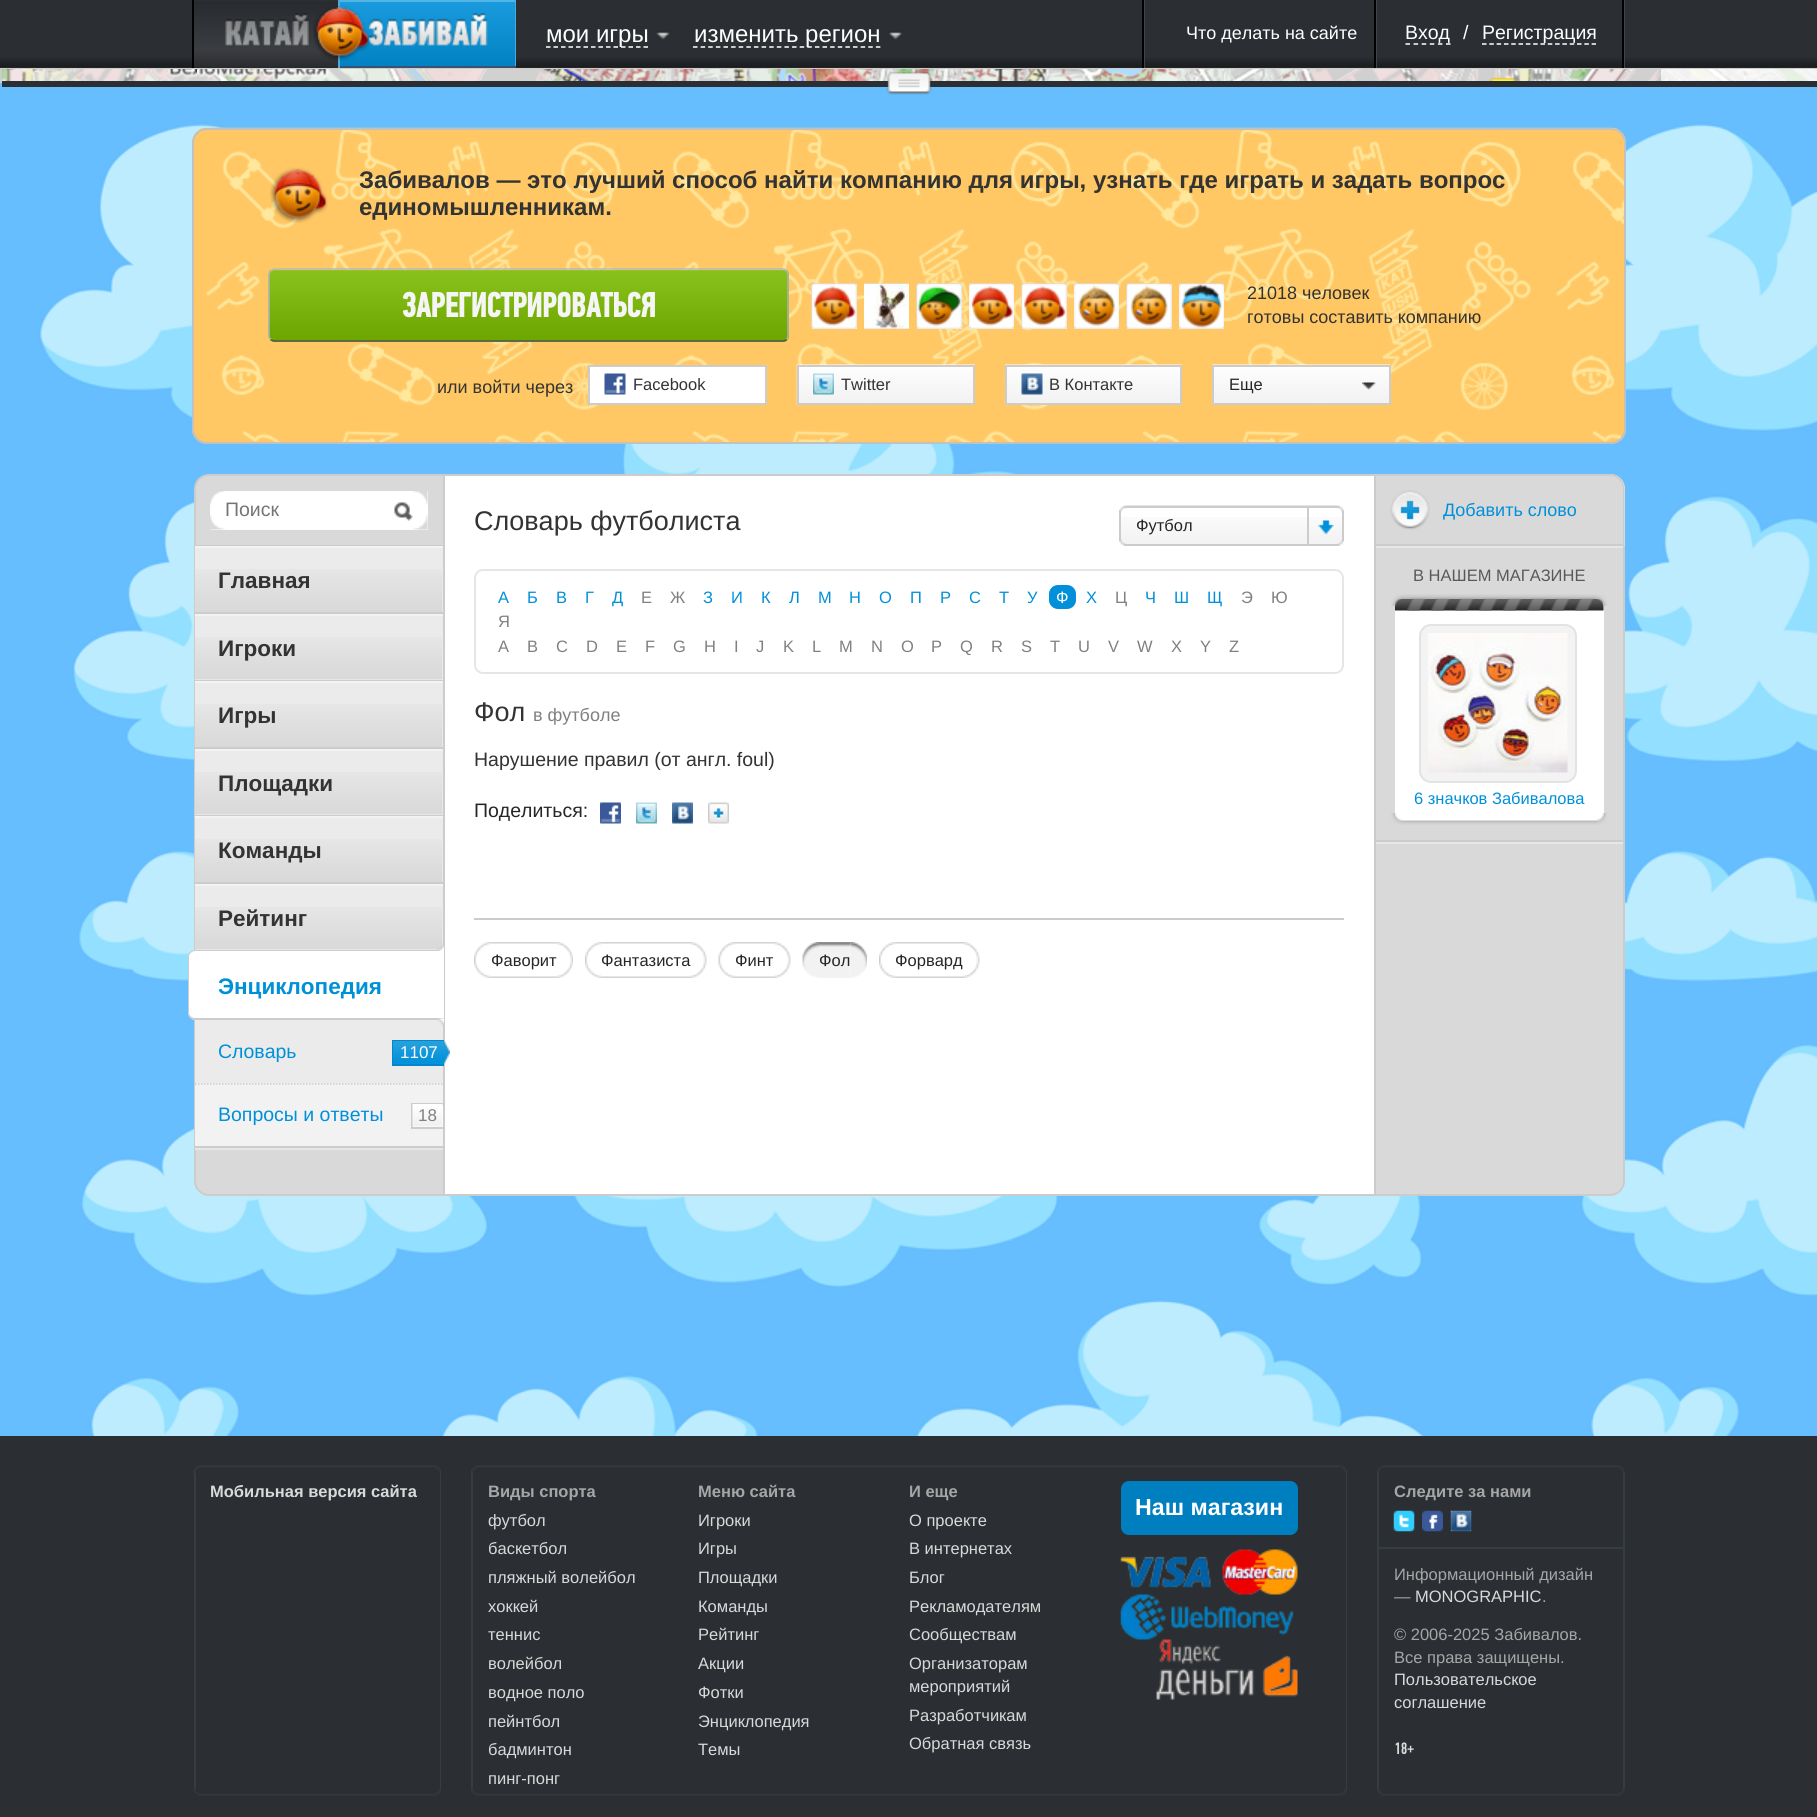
import math
import cairo



def rounded_rect(context, x, y, w, h, r):
    context.new_sub_path()
    for i, (u, v) in enumerate([(x + w - r, y + h - r), (x + r, y + h - r), (x + r, y + r), (x + w - r, y + r)]):
        context.arc(u, v, r, i * math.pi / 2, (i + 1) * math.pi / 2)
    context.close_path()


def draw_shadow(context, x, y, w, h, r, blur, alpha):
    context.push_group_with_content(cairo.Content.ALPHA)
    context.set_operator(cairo.Operator.SOURCE)
    for i in range(15, -16, -2):
        e = blur * i / 6
        if min(w, h) + 2 * e > 0:
            context.set_source_rgba(0, 0, 0, alpha * math.erfc((i - 1) / 8.5) / 2)
            rounded_rect(context, x - e, y - e, w + 2 * e, h + 2 * e, max(0, min(r + e + blur * .6, min(w, h) / 2 + e)))
            context.fill()
    context.mask(context.pop_group())


def draw_image(context, path, x, y, w, h):
    context.save()
    context.set_source_surface(cairo.ImageSurface.create_from_png(path), x, y)
    context.rectangle(x, y, w, h)
    context.fill()
    context.restore()


def draw(context):
    context.set_source_rgb(1, 1, 1)
    context.paint()
    context.rectangle(1, 69, 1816, 13)
    context.set_source_rgb(204 / 255, 204 / 255, 204 / 255)
    context.stroke()
    draw_image(context, "images/11.png", 1349, 69, 384, 12)
    draw_image(context, "images/12.png", 1733, 69, 84, 12)
    draw_image(context, "images/14.png", 0, 83, 1817, 1353)
    context.set_source_rgb(43 / 255, 47 / 255, 51 / 255)
    context.rectangle(2, 81, 1815, 6)
    context.fill()
    context.save()
    context.rectangle(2, 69, 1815, 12)
    context.clip()
    context.set_fill_rule(cairo.FillRule.EVEN_ODD)
    context.new_path()
    context.move_to(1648, 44)
    context.line_to(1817, 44)
    context.line_to(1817, 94)
    context.line_to(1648, 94)
    context.close_path()
    context.move_to(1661, 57)
    context.line_to(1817, 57)
    context.line_to(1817, 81)
    context.line_to(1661, 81)
    context.close_path()
    context.clip()
    context.set_source_rgb(187 / 255, 187 / 255, 187 / 255)
    draw_shadow(context, 1661, 57, 156, 24, 0, 4, 1)
    context.restore()
    context.rectangle(0, 0, 1817, 68)
    context.fill()
    draw_image(context, "images/1.png", 0, 58, 1817, 10)
    context.set_source_rgb(0, 0, 0)
    context.rectangle(192, 0, 2, 68)
    context.fill()
    gradient = cairo.LinearGradient(195, -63, 195, 1.5)
    gradient.add_color_stop_rgba(0, 39 / 255, 42 / 255, 46 / 255, 1)
    gradient.add_color_stop_rgba(0.75, 58 / 255, 61 / 255, 65 / 255, 1)
    gradient.add_color_stop_rgba(1, 43 / 255, 45 / 255, 48 / 255, 1)
    context.set_source(gradient)
    context.rectangle(194, 1, 144, 1)
    context.fill()
    gradient = cairo.LinearGradient(195, 1.5, 195, 66)
    gradient.add_color_stop_rgba(0, 39 / 255, 42 / 255, 46 / 255, 1)
    gradient.add_color_stop_rgba(0.75, 58 / 255, 61 / 255, 65 / 255, 1)
    gradient.add_color_stop_rgba(1, 43 / 255, 45 / 255, 48 / 255, 1)
    context.set_source(gradient)
    context.rectangle(194, 2, 144, 64)
    context.fill()
    gradient = cairo.LinearGradient(195, 66, 195, 131)
    gradient.add_color_stop_rgba(0, 39 / 255, 42 / 255, 46 / 255, 1)
    gradient.add_color_stop_rgba(0.75, 58 / 255, 61 / 255, 65 / 255, 1)
    gradient.add_color_stop_rgba(1, 43 / 255, 45 / 255, 48 / 255, 1)
    context.set_source(gradient)
    context.rectangle(194, 66, 144, 2)
    context.fill()
    draw_image(context, "images/2.png", 225, 13, 84, 33)
    gradient = cairo.LinearGradient(339, 1.5, 339, 66)
    gradient.add_color_stop_rgba(0, 26 / 255, 155 / 255, 221 / 255, 1)
    gradient.add_color_stop_rgba(1, 1 / 255, 130 / 255, 195 / 255, 1)
    context.set_source(gradient)
    context.rectangle(340, 2, 175, 64)
    context.fill()
    context.set_source_rgb(83 / 255, 180 / 255, 230 / 255)
    context.rectangle(338, 0, 178, 2)
    context.fill()
    context.set_source_rgb(74 / 255, 172 / 255, 221 / 255)
    context.rectangle(515, 0, 1, 68)
    context.fill()
    context.set_source_rgb(61 / 255, 80 / 255, 114 / 255)
    context.rectangle(338, 66, 178, 2)
    context.fill()
    context.set_source_rgb(74 / 255, 172 / 255, 221 / 255)
    context.rectangle(338, 0, 2, 68)
    context.fill()
    draw_image(context, "images/3.png", 369, 13, 119, 33)
    draw_image(context, "images/4.png", 313, 5, 57, 56)
    context.new_path()
    context.move_to(546, 47)
    context.line_to(648, 47)
    context.set_source_rgb(1, 1, 1)
    context.set_line_width(1.5)
    context.set_dash([4.5, 3])
    context.stroke()
    draw_image(context, "images/5.png", 656, 31, 14, 9)
    context.new_path()
    context.move_to(693, 47)
    context.line_to(880.5, 47)
    context.set_dash([4.5, 3.12])
    context.stroke()
    draw_image(context, "images/6.png", 889, 31, 13, 9)
    context.set_source_rgb(65 / 255, 68 / 255, 72 / 255)
    context.rectangle(1144, 0, 1, 68)
    context.fill()
    context.set_source_rgb(0, 0, 0)
    context.rectangle(1142, 0, 2, 68)
    context.fill()
    context.set_source_rgb(65 / 255, 68 / 255, 72 / 255)
    context.rectangle(1376, 0, 1, 68)
    context.fill()
    context.set_source_rgb(0, 0, 0)
    context.rectangle(1374, 0, 2, 68)
    context.fill()
    context.new_path()
    context.move_to(1405.5, 44)
    context.line_to(1450.5, 44)
    context.set_source_rgb(1, 1, 1)
    context.set_dash([4.5, 3.6])
    context.stroke()
    context.new_path()
    context.move_to(1482, 44)
    context.line_to(1596, 44)
    context.set_dash([4.5, 2.81])
    context.stroke()
    context.set_source_rgb(65 / 255, 68 / 255, 72 / 255)
    context.rectangle(1624, 0, 1, 68)
    context.fill()
    context.set_source_rgb(0, 0, 0)
    context.rectangle(1622, 0, 2, 68)
    context.fill()
    context.set_source_rgba(1, 1, 1, 0.7)
    context.rectangle(1661, 69, 156, 12)
    context.fill()
    draw_image(context, "images/7.png", 2, 69, 195, 12)
    draw_image(context, "images/8.png", 197, 69, 384, 12)
    draw_image(context, "images/9.png", 581, 69, 384, 12)
    draw_image(context, "images/10.png", 965, 69, 384, 12)
    draw_image(context, "images/13.png", 886, 72, 46, 23)
    draw_image(context, "images/15.png", 192, 127, 1434, 317)
    rounded_rect(context, 193, 129, 1432, 314, 14)
    context.set_source_rgb(193 / 255, 193 / 255, 193 / 255)
    context.set_line_width(2)
    context.set_dash([])
    context.stroke()
    draw_image(context, "images/16.png", 270, 167, 58, 56)
    draw_image(context, "images/17.png", 268, 269, 521, 73)
    context.new_path()
    context.move_to(271, 271)
    context.curve_to(272, 270, 273, 269, 274.5, 269)
    context.line_to(783, 269)
    context.curve_to(784.5, 269, 785.5, 270, 786.5, 271)
    context.set_source_rgb(182 / 255, 187 / 255, 194 / 255)
    context.set_line_width(1.5)
    context.stroke()
    context.new_path()
    context.move_to(786.5, 271)
    context.curve_to(787.5, 272, 788, 273, 788, 274.5)
    context.line_to(788, 336)
    context.curve_to(788, 337.5, 787.5, 338.5, 786.5, 339.5)
    context.set_source_rgb(174 / 255, 179 / 255, 185 / 255)
    context.stroke()
    context.new_path()
    context.move_to(786.5, 339.5)
    context.curve_to(785.5, 340.5, 784.5, 341, 783, 341)
    context.line_to(274.5, 341)
    context.curve_to(273, 341, 272, 340.5, 271, 339.5)
    context.set_source_rgb(81 / 255, 84 / 255, 87 / 255)
    context.stroke()
    context.new_path()
    context.move_to(271, 339.5)
    context.curve_to(270, 338.5, 269, 337.5, 269, 336)
    context.line_to(269, 274.5)
    context.curve_to(269, 273, 270, 272, 271, 271)
    context.set_source_rgb(173 / 255, 179 / 255, 185 / 255)
    context.stroke()
    context.set_source_rgb(1, 1, 1)
    context.rectangle(812, 284, 45, 45)
    context.fill()
    draw_image(context, "images/18.png", 811, 283, 46, 46)
    draw_image(context, "images/19.png", 811, 283, 46, 46)
    context.rectangle(864, 328, 45, 1)
    context.fill()
    draw_image(context, "images/20.png", 864, 283, 45, 46)
    draw_image(context, "images/21.png", 864, 283, 45, 46)
    context.rectangle(917, 284, 45, 45)
    context.fill()
    draw_image(context, "images/22.png", 916, 283, 46, 46)
    draw_image(context, "images/23.png", 916, 283, 46, 46)
    context.rectangle(969, 328, 45, 1)
    context.fill()
    draw_image(context, "images/24.png", 969, 283, 45, 46)
    draw_image(context, "images/25.png", 969, 283, 45, 46)
    context.rectangle(1022, 284, 45, 45)
    context.fill()
    draw_image(context, "images/26.png", 1021, 283, 46, 46)
    draw_image(context, "images/27.png", 1021, 283, 46, 46)
    context.rectangle(1074, 328, 45, 1)
    context.fill()
    draw_image(context, "images/28.png", 1074, 283, 45, 46)
    draw_image(context, "images/29.png", 1074, 283, 45, 46)
    context.rectangle(1127, 284, 45, 45)
    context.fill()
    draw_image(context, "images/30.png", 1126, 283, 46, 46)
    draw_image(context, "images/31.png", 1126, 283, 46, 46)
    context.rectangle(1179, 328, 45, 1)
    context.fill()
    draw_image(context, "images/32.png", 1179, 283, 45, 46)
    draw_image(context, "images/33.png", 1179, 283, 45, 46)
    context.rectangle(590, 367, 175, 36)
    context.fill()
    context.rectangle(589, 366, 177, 38)
    context.set_source_rgb(204 / 255, 204 / 255, 204 / 255)
    context.set_line_width(2)
    context.stroke()
    draw_image(context, "images/34.png", 604, 373, 22, 22)
    draw_image(context, "images/35.png", 796, 364, 179, 41)
    context.rectangle(798, 366, 176, 38)
    context.stroke()
    draw_image(context, "images/36.png", 813, 373, 21, 22)
    draw_image(context, "images/37.png", 1005, 364, 177, 39)
    context.rectangle(1006, 366, 175, 38)
    context.stroke()
    draw_image(context, "images/38.png", 1021, 373, 22, 22)
    draw_image(context, "images/39.png", 1212, 364, 179, 39)
    context.rectangle(1213, 366, 177, 38)
    context.stroke()
    draw_image(context, "images/40.png", 1362, 382, 14, 8)
    context.set_source_rgb(217 / 255, 217 / 255, 217 / 255)
    rounded_rect(context, 195, 475, 1429, 720, 14)
    context.fill_preserve()
    context.set_source_rgb(204 / 255, 204 / 255, 204 / 255)
    context.stroke()
    context.set_source_rgb(1, 1, 1)
    context.rectangle(210, 491, 218, 39)
    context.fill()
    draw_image(context, "images/41.png", 210, 491, 15, 14)
    draw_image(context, "images/43.png", 394, 502, 19, 19)
    draw_image(context, "images/42.png", 412, 491, 16, 14)
    draw_image(context, "images/44.png", 210, 515, 15, 15)
    draw_image(context, "images/45.png", 413, 515, 15, 15)
    context.set_source_rgb(204 / 255, 204 / 255, 204 / 255)
    context.rectangle(195, 545, 248, 1)
    context.fill()
    context.set_source_rgb(230 / 255, 230 / 255, 230 / 255)
    context.rectangle(195, 1148, 248, 2)
    context.fill()
    context.set_source_rgb(235 / 255, 235 / 255, 235 / 255)
    context.rectangle(195, 548, 248, 64)
    context.fill()
    context.set_source_rgb(243 / 255, 243 / 255, 243 / 255)
    context.rectangle(195, 546, 248, 2)
    context.fill()
    context.set_source_rgb(204 / 255, 204 / 255, 204 / 255)
    context.rectangle(195, 612, 248, 2)
    context.fill()
    draw_image(context, "images/46.png", 195, 569, 248, 43)
    context.set_source_rgb(235 / 255, 235 / 255, 235 / 255)
    context.rectangle(195, 616, 248, 64)
    context.fill()
    context.set_source_rgb(243 / 255, 243 / 255, 243 / 255)
    context.rectangle(195, 614, 248, 2)
    context.fill()
    context.set_source_rgb(204 / 255, 204 / 255, 204 / 255)
    context.rectangle(195, 680, 248, 1)
    context.fill()
    draw_image(context, "images/47.png", 195, 637, 248, 43)
    context.set_source_rgb(235 / 255, 235 / 255, 235 / 255)
    context.rectangle(195, 683, 248, 64)
    context.fill()
    context.set_source_rgb(243 / 255, 243 / 255, 243 / 255)
    context.rectangle(195, 681, 248, 2)
    context.fill()
    context.set_source_rgb(204 / 255, 204 / 255, 204 / 255)
    context.rectangle(195, 747, 248, 2)
    context.fill()
    draw_image(context, "images/46.png", 195, 704, 248, 43)
    context.set_source_rgb(235 / 255, 235 / 255, 235 / 255)
    context.rectangle(195, 751, 248, 64)
    context.fill()
    context.set_source_rgb(243 / 255, 243 / 255, 243 / 255)
    context.rectangle(195, 749, 248, 2)
    context.fill()
    context.set_source_rgb(204 / 255, 204 / 255, 204 / 255)
    context.rectangle(195, 815, 248, 1)
    context.fill()
    draw_image(context, "images/47.png", 195, 772, 248, 43)
    context.set_source_rgb(235 / 255, 235 / 255, 235 / 255)
    context.rectangle(195, 818, 248, 64)
    context.fill()
    context.set_source_rgb(243 / 255, 243 / 255, 243 / 255)
    context.rectangle(195, 816, 248, 2)
    context.fill()
    context.set_source_rgb(204 / 255, 204 / 255, 204 / 255)
    context.rectangle(195, 882, 248, 2)
    context.fill()
    draw_image(context, "images/46.png", 195, 839, 248, 43)
    context.set_source_rgb(235 / 255, 235 / 255, 235 / 255)
    context.rectangle(195, 886, 248, 64)
    context.fill()
    context.set_source_rgb(243 / 255, 243 / 255, 243 / 255)
    context.rectangle(195, 884, 248, 2)
    context.fill()
    draw_image(context, "images/47.png", 195, 907, 248, 43)
    context.set_source_rgb(235 / 255, 235 / 255, 235 / 255)
    context.rectangle(195, 1020, 248, 63)
    context.fill()
    context.set_source_rgb(204 / 255, 204 / 255, 204 / 255)
    context.rectangle(195, 1146, 248, 2)
    context.fill()
    context.rectangle(443, 476, 2, 718)
    context.fill()
    context.set_source_rgb(1, 1, 1)
    context.new_path()
    context.move_to(196, 950)
    context.line_to(444, 950)
    context.line_to(444, 1020)
    context.line_to(196, 1020)
    context.curve_to(191.5, 1020, 188, 1016.5, 188, 1012)
    context.line_to(188, 958)
    context.curve_to(188, 953.5, 191.5, 950, 196, 950)
    context.close_path()
    context.fill()
    context.set_source_rgb(204 / 255, 204 / 255, 204 / 255)
    context.set_fill_rule(cairo.FillRule.EVEN_ODD)
    context.new_path()
    context.move_to(195, 950)
    context.line_to(444, 950)
    context.line_to(444, 1020)
    context.line_to(195, 1020)
    context.curve_to(191, 1020, 188, 1017, 188, 1012)
    context.line_to(188, 957)
    context.curve_to(188, 953, 191, 950, 195, 950)
    context.close_path()
    context.move_to(195, 951)
    context.line_to(444, 951)
    context.line_to(444, 1018)
    context.line_to(195, 1018)
    context.curve_to(192, 1018, 189, 1016, 189, 1012)
    context.line_to(189, 957)
    context.curve_to(189, 954, 192, 951, 195, 951)
    context.close_path()
    context.fill()
    draw_image(context, "images/48.png", 436, 943, 8, 8)
    draw_image(context, "images/49.png", 437, 1018, 7, 8)
    context.set_source_rgb(13 / 255, 149 / 255, 216 / 255)
    context.rectangle(394, 1063, 50, 1)
    context.fill()
    context.set_source_rgb(1 / 255, 135 / 255, 203 / 255)
    context.rectangle(392, 1040, 52, 1)
    context.fill()
    context.rectangle(392, 1064, 52, 2)
    context.fill()
    context.rectangle(392, 1040, 2, 25)
    context.fill()
    draw_image(context, "images/50.png", 393, 1041, 51, 23)
    context.set_source_rgb(1, 1, 1)
    context.rectangle(445, 476, 929, 718)
    context.fill()
    draw_image(context, "images/51.png", 444, 1041, 6, 23)
    context.set_source_rgb(242 / 255, 242 / 255, 242 / 255)
    context.rectangle(195, 1083, 248, 63)
    context.fill()
    context.new_path()
    context.move_to(195, 1084)
    context.line_to(442.5, 1084)
    context.set_source_rgb(204 / 255, 204 / 255, 204 / 255)
    context.set_line_width(1.5)
    context.set_dash([1.5, 1.5])
    context.stroke()
    context.set_source_rgb(1, 1, 1)
    context.rectangle(413, 1105, 30, 22)
    context.fill()
    context.set_source_rgb(204 / 255, 204 / 255, 204 / 255)
    context.rectangle(411, 1103, 32, 2)
    context.fill()
    context.rectangle(411, 1127, 32, 2)
    context.fill()
    context.rectangle(411, 1103, 2, 25)
    context.fill()
    draw_image(context, "images/52.png", 412, 1104, 31, 23)
    context.rectangle(1374, 476, 2, 718)
    context.fill()
    context.set_source_rgb(230 / 255, 230 / 255, 230 / 255)
    context.rectangle(1376, 546, 247, 2)
    context.fill()
    context.set_source_rgb(217 / 255, 217 / 255, 217 / 255)
    context.new_path()
    context.move_to(1376, 474)
    context.line_to(1610, 474)
    context.curve_to(1618.5, 474, 1625, 480.5, 1625, 489)
    context.line_to(1625, 546)
    context.line_to(1376, 546)
    context.close_path()
    context.fill()
    context.set_source_rgb(204 / 255, 204 / 255, 204 / 255)
    context.new_path()
    context.move_to(1376, 474)
    context.line_to(1610, 474)
    context.curve_to(1618, 474, 1624, 481, 1624, 489)
    context.line_to(1624, 546)
    context.line_to(1376, 546)
    context.close_path()
    context.move_to(1376, 476)
    context.line_to(1610, 476)
    context.curve_to(1617, 476, 1623, 482, 1623, 489)
    context.line_to(1623, 544)
    context.line_to(1376, 544)
    context.close_path()
    context.fill()
    draw_image(context, "images/53.png", 1390, 490, 40, 40)
    context.set_source_rgb(230 / 255, 230 / 255, 230 / 255)
    context.rectangle(1376, 842, 247, 2)
    context.fill()
    context.set_source_rgb(204 / 255, 204 / 255, 204 / 255)
    context.rectangle(1376, 840, 247, 2)
    context.fill()
    context.set_source_rgb(1, 1, 1)
    context.rectangle(1395, 598, 209, 223)
    context.fill()
    draw_image(context, "images/56.png", 1395, 598, 209, 13)
    draw_image(context, "images/57.png", 1407, 598, 186, 13)
    draw_image(context, "images/54.png", 1391, 594, 205, 12)
    draw_image(context, "images/55.png", 1596, 594, 11, 12)
    context.set_source_rgb(243 / 255, 243 / 255, 243 / 255)
    rounded_rect(context, 1420, 625, 156, 157, 11)
    context.fill_preserve()
    context.set_source_rgb(227 / 255, 227 / 255, 227 / 255)
    context.set_line_width(2)
    context.set_dash([])
    context.stroke()
    draw_image(context, "images/58.png", 1428, 633, 140, 140)
    draw_image(context, "images/59.png", 1391, 813, 205, 12)
    draw_image(context, "images/60.png", 1596, 813, 11, 12)
    draw_image(context, "images/63.png", 1121, 517, 221, 27)
    context.rectangle(1120, 507, 223, 38)
    context.set_source_rgb(204 / 255, 204 / 255, 204 / 255)
    context.stroke()
    context.rectangle(1307, 506, 2, 40)
    context.fill()
    draw_image(context, "images/61.png", 1119, 505, 218, 8)
    draw_image(context, "images/62.png", 1336, 505, 8, 8)
    draw_image(context, "images/64.png", 1318, 520, 17, 15)
    draw_image(context, "images/65.png", 1119, 539, 8, 7)
    draw_image(context, "images/66.png", 1337, 539, 7, 7)
    rounded_rect(context, 475, 570, 868, 103, 8)
    context.set_source_rgb(230 / 255, 230 / 255, 230 / 255)
    context.stroke()
    context.set_source_rgb(0, 144 / 255, 217 / 255)
    rounded_rect(context, 1049, 585, 27, 24, 9)
    context.fill()
    context.set_source_rgb(204 / 255, 204 / 255, 204 / 255)
    context.rectangle(474, 918, 870, 2)
    context.fill()
    draw_image(context, "images/67.png", 600, 802, 21, 22)
    draw_image(context, "images/68.png", 636, 802, 21, 22)
    draw_image(context, "images/69.png", 672, 802, 21, 22)
    draw_image(context, "images/70.png", 708, 802, 21, 22)
    draw_image(context, "images/71.png", 556, 942, 17, 36)
    draw_image(context, "images/73.png", 490, 942, 67, 36)
    draw_image(context, "images/72.png", 474, 942, 17, 36)
    draw_image(context, "images/74.png", 690, 942, 17, 36)
    draw_image(context, "images/75.png", 601, 942, 89, 36)
    draw_image(context, "images/72.png", 585, 942, 17, 36)
    draw_image(context, "images/74.png", 774, 942, 17, 36)
    draw_image(context, "images/76.png", 718, 942, 17, 36)
    draw_image(context, "images/77.png", 735, 942, 39, 36)
    draw_image(context, "images/78.png", 850, 942, 17, 36)
    draw_image(context, "images/79.png", 802, 942, 17, 36)
    draw_image(context, "images/80.png", 819, 942, 32, 36)
    draw_image(context, "images/74.png", 963, 942, 17, 36)
    draw_image(context, "images/82.png", 895, 942, 68, 36)
    draw_image(context, "images/81.png", 879, 942, 17, 36)
    context.set_source_rgb(43 / 255, 47 / 255, 51 / 255)
    context.rectangle(0, 1436, 1817, 381)
    context.fill()
    draw_image(context, "images/83.png", 193, 1465, 241, 8)
    draw_image(context, "images/84.png", 434, 1465, 7, 8)
    context.set_source_rgb(55 / 255, 60 / 255, 64 / 255)
    context.rectangle(440, 1473, 1, 315)
    context.fill()
    context.rectangle(194, 1473, 2, 315)
    context.fill()
    draw_image(context, "images/85.png", 193, 1788, 240, 8)
    draw_image(context, "images/86.png", 433, 1788, 8, 8)
    draw_image(context, "images/87.png", 471, 1465, 869, 8)
    draw_image(context, "images/84.png", 1340, 1465, 7, 8)
    context.rectangle(1346, 1473, 1, 315)
    context.fill()
    context.rectangle(471, 1473, 2, 315)
    context.fill()
    context.set_source_rgb(0, 127 / 255, 192 / 255)
    rounded_rect(context, 1122, 1482, 175, 52, 7)
    context.fill_preserve()
    context.stroke()
    draw_image(context, "images/88.png", 1120, 1549, 178, 151)
    draw_image(context, "images/89.png", 471, 1788, 868, 8)
    draw_image(context, "images/86.png", 1339, 1788, 8, 8)
    draw_image(context, "images/90.png", 1377, 1465, 240, 8)
    draw_image(context, "images/91.png", 1617, 1465, 8, 8)
    context.set_source_rgb(55 / 255, 60 / 255, 64 / 255)
    context.rectangle(1623, 1473, 2, 315)
    context.fill()
    context.rectangle(1377, 1473, 2, 315)
    context.fill()
    context.rectangle(1379, 1547, 244, 2)
    context.fill()
    draw_image(context, "images/92.png", 1393, 1510, 22, 22)
    draw_image(context, "images/93.png", 1422, 1510, 21, 22)
    draw_image(context, "images/94.png", 1450, 1510, 22, 22)
    draw_image(context, "images/95.png", 1377, 1788, 240, 8)
    draw_image(context, "images/96.png", 1617, 1788, 8, 8)
    context.select_font_face("Liberation Sans")
    context.set_font_size(24)
    context.set_source_rgb(1, 1, 1)
    context.move_to(546, 42)
    context.show_text("мои игры")
    context.move_to(694, 42)
    context.show_text("изменить регион")
    context.set_font_size(18)
    context.move_to(1186, 39)
    context.show_text("Что делать на сайте")
    context.set_font_size(19.5)
    context.move_to(1405, 39)
    context.show_text("Вход")
    context.move_to(1463, 39)
    context.show_text("/")
    context.move_to(1482, 39)
    context.show_text("Регистрация")
    context.select_font_face("Liberation Sans", cairo.FontSlant.NORMAL, cairo.FontWeight.BOLD)
    context.set_font_size(24)
    context.set_source_rgb(51 / 255, 51 / 255, 51 / 255)
    context.move_to(359, 188)
    context.show_text("Забивалов — это лучший способ найти компанию для игры, узнать где играть и задать вопрос")
    context.move_to(359, 215)
    context.show_text("единомышленникам.")
    context.select_font_face("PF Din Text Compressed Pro", cairo.FontSlant.NORMAL, cairo.FontWeight.BOLD)
    context.set_font_size(34.5)
    context.set_source_rgb(245 / 255, 245 / 255, 245 / 255)
    context.move_to(402, 317)
    context.show_text("ЗАРЕГИСТРИРОВАТЬСЯ")
    context.select_font_face("Liberation Sans")
    context.set_font_size(18)
    context.set_source_rgb(51 / 255, 51 / 255, 51 / 255)
    context.move_to(1247, 299)
    context.show_text("21018 человек")
    context.move_to(1247, 323)
    context.show_text("готовы составить компанию")
    context.move_to(437, 393)
    context.show_text("или войти через")
    context.set_font_size(16.5)
    context.move_to(633, 390)
    context.show_text("Facebook")
    context.move_to(841, 390)
    context.show_text("Twitter")
    context.move_to(1049, 390)
    context.show_text("В Контакте")
    context.set_source_rgb(38 / 255, 38 / 255, 38 / 255)
    context.move_to(1229, 390)
    context.show_text("Еще")
    context.set_font_size(19.5)
    context.set_source_rgb(117 / 255, 117 / 255, 117 / 255)
    context.move_to(225, 516)
    context.show_text("Поиск")
    context.select_font_face("Liberation Sans", cairo.FontSlant.NORMAL, cairo.FontWeight.BOLD)
    context.set_font_size(22.5)
    context.set_source_rgb(51 / 255, 51 / 255, 51 / 255)
    context.move_to(218, 588)
    context.show_text("Главная")
    context.move_to(218, 656)
    context.show_text("Игроки")
    context.move_to(218, 723)
    context.show_text("Игры")
    context.move_to(218, 791)
    context.show_text("Площадки")
    context.move_to(218, 858)
    context.show_text("Команды")
    context.move_to(218, 926)
    context.show_text("Рейтинг")
    context.set_source_rgb(0, 144 / 255, 217 / 255)
    context.move_to(218, 994)
    context.show_text("Энциклопедия")
    context.select_font_face("Liberation Sans")
    context.set_font_size(19.5)
    context.move_to(218, 1058)
    context.show_text("Словарь")
    context.set_font_size(17)
    context.set_source_rgb(1, 1, 1)
    context.move_to(400, 1058)
    context.show_text("1107")
    context.set_font_size(19.5)
    context.set_source_rgb(0, 144 / 255, 217 / 255)
    context.move_to(218, 1121)
    context.show_text("Вопросы и ответы")
    context.set_font_size(17)
    context.set_source_rgb(128 / 255, 128 / 255, 128 / 255)
    context.move_to(418, 1121)
    context.show_text("18")
    context.set_font_size(18)
    context.set_source_rgb(0, 144 / 255, 217 / 255)
    context.move_to(1443, 516)
    context.show_text("Добавить слово")
    context.set_font_size(16.5)
    context.set_source_rgb(89 / 255, 89 / 255, 89 / 255)
    context.move_to(1413, 581)
    context.show_text("В НАШЕМ МАГАЗИНЕ")
    context.set_source_rgb(0, 144 / 255, 217 / 255)
    context.move_to(1414, 804)
    context.show_text("6 значков Забивалова")
    context.set_font_size(27)
    context.set_source_rgb(51 / 255, 51 / 255, 51 / 255)
    context.move_to(474, 530)
    context.show_text("Словарь футболиста")
    context.set_font_size(16.5)
    context.set_source_rgb(38 / 255, 38 / 255, 38 / 255)
    context.move_to(1136, 531)
    context.show_text("Футбол")
    context.set_source_rgb(0, 144 / 255, 217 / 255)
    context.move_to(498, 603)
    context.show_text("А")
    context.move_to(527, 603)
    context.show_text("Б")
    context.move_to(556, 603)
    context.show_text("В")
    context.move_to(585, 603)
    context.show_text("Г")
    context.move_to(612, 603)
    context.show_text("Д")
    context.set_source_rgb(128 / 255, 128 / 255, 128 / 255)
    context.move_to(641, 603)
    context.show_text("Е")
    context.move_to(670, 603)
    context.show_text("Ж")
    context.set_source_rgb(0, 144 / 255, 217 / 255)
    context.move_to(703, 603)
    context.show_text("З")
    context.move_to(731, 603)
    context.show_text("И")
    context.move_to(761, 603)
    context.show_text("К")
    context.move_to(789, 603)
    context.show_text("Л")
    context.move_to(818, 603)
    context.show_text("М")
    context.move_to(849, 603)
    context.show_text("Н")
    context.move_to(879, 603)
    context.show_text("О")
    context.move_to(910, 603)
    context.show_text("П")
    context.move_to(940, 603)
    context.show_text("Р")
    context.move_to(969, 603)
    context.show_text("С")
    context.move_to(999, 603)
    context.show_text("Т")
    context.move_to(1027, 603)
    context.show_text("У")
    context.set_source_rgb(1, 1, 1)
    context.move_to(1056, 603)
    context.show_text("Ф")
    context.set_source_rgb(0, 144 / 255, 217 / 255)
    context.move_to(1086, 603)
    context.show_text("Х")
    context.set_source_rgb(128 / 255, 128 / 255, 128 / 255)
    context.move_to(1115, 603)
    context.show_text("Ц")
    context.set_source_rgb(0, 144 / 255, 217 / 255)
    context.move_to(1145, 603)
    context.show_text("Ч")
    context.move_to(1174, 603)
    context.show_text("Ш")
    context.move_to(1207, 603)
    context.show_text("Щ")
    context.set_source_rgb(128 / 255, 128 / 255, 128 / 255)
    context.move_to(1241, 603)
    context.show_text("Э")
    context.move_to(1271, 603)
    context.show_text("Ю")
    context.move_to(498, 627)
    context.show_text("Я")
    context.move_to(498, 652)
    context.show_text("A")
    context.move_to(527, 652)
    context.show_text("B")
    context.move_to(556, 652)
    context.show_text("C")
    context.move_to(586, 652)
    context.show_text("D")
    context.move_to(616, 652)
    context.show_text("E")
    context.move_to(645, 652)
    context.show_text("F")
    context.move_to(673, 652)
    context.show_text("G")
    context.move_to(704, 652)
    context.show_text("H")
    context.move_to(734, 652)
    context.show_text("I")
    context.move_to(756, 652)
    context.show_text("J")
    context.move_to(783, 652)
    context.show_text("K")
    context.move_to(812, 652)
    context.show_text("L")
    context.move_to(839, 652)
    context.show_text("M")
    context.move_to(871, 652)
    context.show_text("N")
    context.move_to(901, 652)
    context.show_text("O")
    context.move_to(931, 652)
    context.show_text("P")
    context.move_to(960, 652)
    context.show_text("Q")
    context.move_to(991, 652)
    context.show_text("R")
    context.move_to(1021, 652)
    context.show_text("S")
    context.move_to(1050, 652)
    context.show_text("T")
    context.move_to(1078, 652)
    context.show_text("U")
    context.move_to(1108, 652)
    context.show_text("V")
    context.move_to(1137, 652)
    context.show_text("W")
    context.move_to(1171, 652)
    context.show_text("X")
    context.move_to(1200, 652)
    context.show_text("Y")
    context.move_to(1229, 652)
    context.show_text("Z")
    context.set_font_size(27)
    context.set_source_rgb(51 / 255, 51 / 255, 51 / 255)
    context.move_to(474, 721)
    context.show_text("Фол")
    context.set_font_size(18)
    context.set_source_rgb(128 / 255, 128 / 255, 128 / 255)
    context.move_to(533, 721)
    context.show_text("в футболе")
    context.set_font_size(19.5)
    context.set_source_rgb(51 / 255, 51 / 255, 51 / 255)
    context.move_to(474, 766)
    context.show_text("Нарушение правил (от англ. foul)")
    context.set_source_rgb(38 / 255, 38 / 255, 38 / 255)
    context.move_to(474, 817)
    context.show_text("Поделиться:")
    context.set_font_size(16.5)
    context.move_to(491, 966)
    context.show_text("Фаворит")
    context.move_to(601, 966)
    context.show_text("Фантазиста")
    context.move_to(735, 966)
    context.show_text("Финт")
    context.move_to(819, 966)
    context.show_text("Фол")
    context.move_to(895, 966)
    context.show_text("Форвард")
    context.select_font_face("Liberation Sans", cairo.FontSlant.NORMAL, cairo.FontWeight.BOLD)
    context.set_source_rgb(217 / 255, 217 / 255, 217 / 255)
    context.move_to(210, 1497)
    context.show_text("Мобильная версия сайта")
    context.set_source_rgb(166 / 255, 166 / 255, 166 / 255)
    context.move_to(488, 1497)
    context.show_text("Виды спорта")
    context.select_font_face("Liberation Sans")
    context.set_source_rgb(217 / 255, 217 / 255, 217 / 255)
    context.move_to(488, 1526)
    context.show_text("футбол")
    context.move_to(488, 1554)
    context.show_text("баскетбол")
    context.move_to(488, 1583)
    context.show_text("пляжный волейбол")
    context.move_to(488, 1612)
    context.show_text("хоккей")
    context.move_to(488, 1640)
    context.show_text("теннис")
    context.move_to(488, 1669)
    context.show_text("волейбол")
    context.move_to(488, 1698)
    context.show_text("водное поло")
    context.move_to(488, 1727)
    context.show_text("пейнтбол")
    context.move_to(488, 1755)
    context.show_text("бадминтон")
    context.move_to(488, 1784)
    context.show_text("пинг-понг")
    context.select_font_face("Liberation Sans", cairo.FontSlant.NORMAL, cairo.FontWeight.BOLD)
    context.set_source_rgb(166 / 255, 166 / 255, 166 / 255)
    context.move_to(698, 1497)
    context.show_text("Меню сайта")
    context.select_font_face("Liberation Sans")
    context.set_source_rgb(217 / 255, 217 / 255, 217 / 255)
    context.move_to(698, 1526)
    context.show_text("Игроки")
    context.move_to(698, 1554)
    context.show_text("Игры")
    context.move_to(698, 1583)
    context.show_text("Площадки")
    context.move_to(698, 1612)
    context.show_text("Команды")
    context.move_to(698, 1640)
    context.show_text("Рейтинг")
    context.move_to(698, 1669)
    context.show_text("Акции")
    context.move_to(698, 1698)
    context.show_text("Фотки")
    context.move_to(698, 1727)
    context.show_text("Энциклопедия")
    context.move_to(698, 1755)
    context.show_text("Темы")
    context.select_font_face("Liberation Sans", cairo.FontSlant.NORMAL, cairo.FontWeight.BOLD)
    context.set_source_rgb(166 / 255, 166 / 255, 166 / 255)
    context.move_to(909, 1497)
    context.show_text("И еще")
    context.select_font_face("Liberation Sans")
    context.set_source_rgb(217 / 255, 217 / 255, 217 / 255)
    context.move_to(909, 1526)
    context.show_text("О проекте")
    context.move_to(909, 1554)
    context.show_text("В интернетах")
    context.move_to(909, 1583)
    context.show_text("Блог")
    context.move_to(909, 1612)
    context.show_text("Рекламодателям")
    context.move_to(909, 1640)
    context.show_text("Сообществам")
    context.move_to(909, 1669)
    context.show_text("Организаторам")
    context.move_to(909, 1692)
    context.show_text("мероприятий")
    context.move_to(909, 1721)
    context.show_text("Разработчикам")
    context.move_to(909, 1749)
    context.show_text("Обратная связь")
    context.select_font_face("Liberation Sans", cairo.FontSlant.NORMAL, cairo.FontWeight.BOLD)
    context.set_font_size(23.25)
    context.set_source_rgb(1, 1, 1)
    context.move_to(1135, 1515)
    context.show_text("Наш магазин")
    context.set_font_size(16.5)
    context.set_source_rgb(166 / 255, 166 / 255, 166 / 255)
    context.move_to(1394, 1497)
    context.show_text("Следите за нами")
    context.select_font_face("Liberation Sans")
    context.move_to(1394, 1580)
    context.show_text("Информационный дизайн")
    context.move_to(1394, 1602)
    context.show_text("—")
    context.set_source_rgb(217 / 255, 217 / 255, 217 / 255)
    context.move_to(1415, 1602)
    context.show_text("MONOGRAPHIC")
    context.set_source_rgb(166 / 255, 166 / 255, 166 / 255)
    context.move_to(1542, 1602)
    context.show_text(".")
    context.save()
    context.set_fill_rule(cairo.FillRule.WINDING)
    context.rectangle(1394, 1548, 214, 122)
    context.clip()
    context.move_to(1394, 1640)
    context.show_text("© 2006-2025 Забивалов.")
    context.restore()
    context.move_to(1394, 1663)
    context.show_text("Все права защищены.")
    context.set_source_rgb(217 / 255, 217 / 255, 217 / 255)
    context.move_to(1394, 1685)
    context.show_text("Пользовательское")
    context.move_to(1394, 1708)
    context.show_text("соглашение")
    context.select_font_face("PF Din Text Compressed Pro Medium")
    context.move_to(1394, 1754)
    context.show_text("18+")


surface = cairo.ImageSurface(cairo.Format.RGB24, 1817, 1817)
context = cairo.Context(surface)
options = cairo.FontOptions()
options.set_hint_metrics(cairo.HintMetrics.OFF)
options.set_hint_style(cairo.HintStyle.NONE)
context.set_font_options(options)
context.set_miter_limit(4)
draw(context)
surface.write_to_png("out.png")
